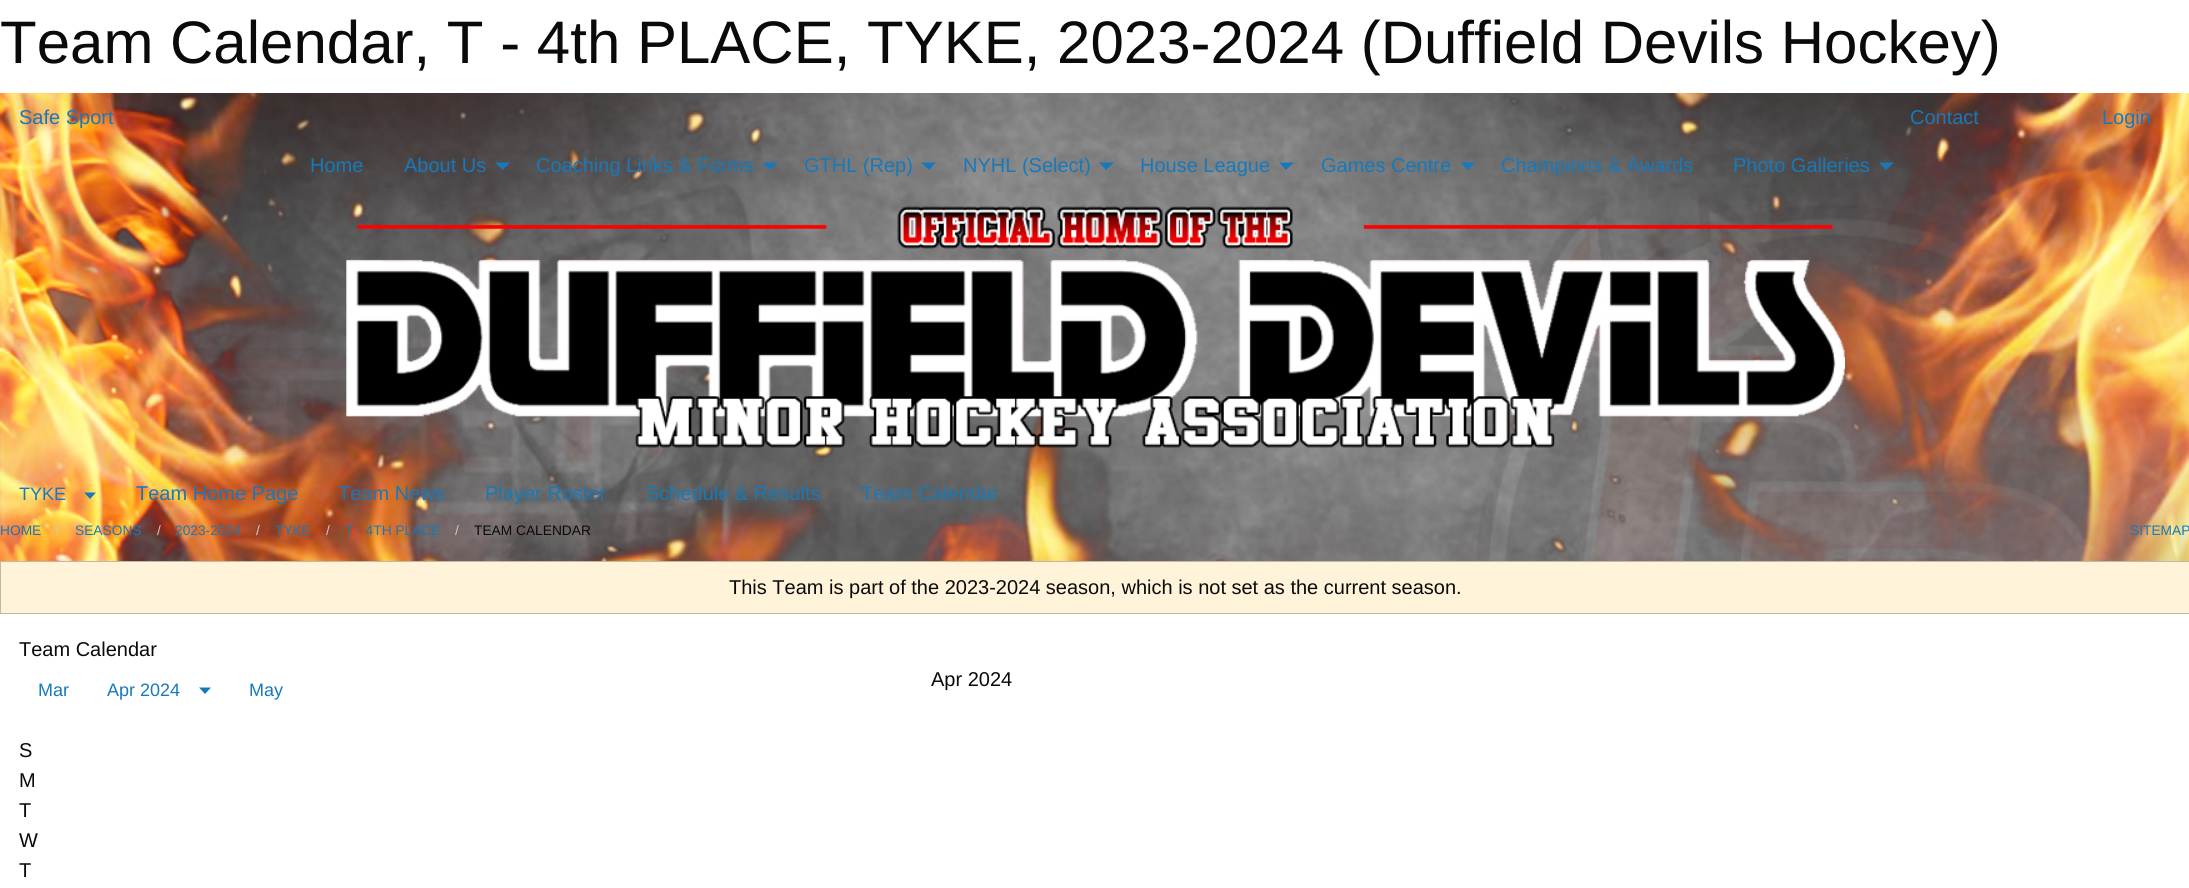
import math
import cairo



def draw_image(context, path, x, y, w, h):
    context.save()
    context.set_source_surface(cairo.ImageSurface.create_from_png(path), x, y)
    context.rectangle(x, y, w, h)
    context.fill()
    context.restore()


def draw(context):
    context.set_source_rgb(1, 1, 1)
    context.paint()
    draw_image(context, "images/1.png", 0, 93, 2189, 468)
    context.set_source_rgb(23 / 255, 121 / 255, 186 / 255)
    context.new_path()
    context.move_to(495, 162.5)
    context.line_to(510, 162.5)
    context.line_to(502.5, 170)
    context.close_path()
    context.fill()
    context.new_path()
    context.move_to(762.5, 162.5)
    context.line_to(777.5, 162.5)
    context.line_to(770, 170)
    context.close_path()
    context.fill()
    context.new_path()
    context.move_to(921, 162.5)
    context.line_to(936, 162.5)
    context.line_to(929, 170)
    context.close_path()
    context.fill()
    context.new_path()
    context.move_to(1099, 162.5)
    context.line_to(1114, 162.5)
    context.line_to(1106, 170)
    context.close_path()
    context.fill()
    context.new_path()
    context.move_to(1279, 162.5)
    context.line_to(1294, 162.5)
    context.line_to(1286, 170)
    context.close_path()
    context.fill()
    context.new_path()
    context.move_to(1460, 162.5)
    context.line_to(1475, 162.5)
    context.line_to(1467.5, 170)
    context.close_path()
    context.fill()
    context.new_path()
    context.move_to(1879, 162.5)
    context.line_to(1894, 162.5)
    context.line_to(1886, 170)
    context.close_path()
    context.fill()
    draw_image(context, "images/2.png", 346, 206, 1499, 242)
    context.new_path()
    context.move_to(84, 492.5)
    context.line_to(96, 492.5)
    context.line_to(90, 499)
    context.close_path()
    context.fill()
    context.set_source_rgb(1, 243 / 255, 217 / 255)
    context.rectangle(0.5, 561.5, 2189, 52)
    context.fill_preserve()
    context.set_source_rgb(194 / 255, 185 / 255, 165 / 255)
    context.set_line_width(1)
    context.stroke()
    context.set_source_rgb(23 / 255, 121 / 255, 186 / 255)
    context.new_path()
    context.move_to(199, 687.5)
    context.line_to(211, 687.5)
    context.line_to(205, 694)
    context.close_path()
    context.fill()
    context.select_font_face("Liberation Sans")
    context.set_font_size(60)
    context.set_source_rgb(10 / 255, 10 / 255, 10 / 255)
    context.move_to(0, 63)
    context.show_text("Team Calendar, T - 4th PLACE, TYKE, 2023-2024 (Duffield Devils Hockey)")
    context.set_font_size(20)
    context.set_source_rgb(23 / 255, 121 / 255, 186 / 255)
    context.move_to(19, 124)
    context.show_text("Safe Sport")
    context.move_to(1910, 124)
    context.show_text("Contact")
    context.move_to(2102, 124)
    context.show_text("Login")
    context.move_to(310, 172)
    context.show_text("Home")
    context.move_to(404, 172)
    context.show_text("About Us")
    context.move_to(536, 172)
    context.show_text("Coaching Links & Forms")
    context.move_to(804, 172)
    context.show_text("GTHL (Rep)")
    context.move_to(963, 172)
    context.show_text("NYHL (Select)")
    context.move_to(1140, 172)
    context.show_text("House League")
    context.move_to(1321, 172)
    context.show_text("Games Centre")
    context.move_to(1501, 172)
    context.show_text("Champions & Awards")
    context.move_to(1733, 172)
    context.show_text("Photo Galleries")
    context.set_font_size(18)
    context.move_to(19, 500)
    context.show_text("TYKE")
    context.set_font_size(20)
    context.move_to(136, 500)
    context.show_text("Team Home Page")
    context.move_to(338, 500)
    context.show_text("Team News")
    context.move_to(485, 500)
    context.show_text("Player Roster")
    context.move_to(646, 500)
    context.show_text("Schedule & Results")
    context.move_to(861, 500)
    context.show_text("Team Calendar")
    context.set_font_size(13.75)
    context.move_to(0, 535)
    context.show_text("HOME")
    context.set_source_rgb(202 / 255, 202 / 255, 202 / 255)
    context.move_to(56, 535)
    context.show_text("/")
    context.set_source_rgb(23 / 255, 121 / 255, 186 / 255)
    context.move_to(75, 535)
    context.show_text("SEASONS")
    context.set_source_rgb(202 / 255, 202 / 255, 202 / 255)
    context.move_to(157, 535)
    context.show_text("/")
    context.set_source_rgb(23 / 255, 121 / 255, 186 / 255)
    context.move_to(175, 535)
    context.show_text("2023-2024")
    context.set_source_rgb(202 / 255, 202 / 255, 202 / 255)
    context.move_to(256, 535)
    context.show_text("/")
    context.set_source_rgb(23 / 255, 121 / 255, 186 / 255)
    context.move_to(275, 535)
    context.show_text("TYKE")
    context.set_source_rgb(202 / 255, 202 / 255, 202 / 255)
    context.move_to(326, 535)
    context.show_text("/")
    context.set_source_rgb(23 / 255, 121 / 255, 186 / 255)
    context.move_to(345, 535)
    context.show_text("T - 4TH PLACE")
    context.set_source_rgb(202 / 255, 202 / 255, 202 / 255)
    context.move_to(455, 535)
    context.show_text("/")
    context.set_source_rgb(10 / 255, 10 / 255, 10 / 255)
    context.move_to(474, 535)
    context.show_text("TEAM CALENDAR")
    context.set_source_rgb(23 / 255, 121 / 255, 186 / 255)
    context.move_to(2130, 535)
    context.show_text("SITEMAP")
    context.set_font_size(20)
    context.set_source_rgb(10 / 255, 10 / 255, 10 / 255)
    context.move_to(729, 594)
    context.show_text("This Team is part of the 2023-2024 season, which is not set as the current season.")
    context.move_to(19, 656)
    context.show_text("Team Calendar")
    context.set_font_size(18)
    context.set_source_rgb(23 / 255, 121 / 255, 186 / 255)
    context.move_to(38, 696)
    context.show_text("Mar")
    context.move_to(107, 696)
    context.show_text("Apr 2024")
    context.move_to(249, 696)
    context.show_text("May")
    context.set_font_size(20)
    context.set_source_rgb(10 / 255, 10 / 255, 10 / 255)
    context.move_to(19, 757)
    context.show_text("S")
    context.move_to(19, 787)
    context.show_text("M")
    context.move_to(19, 817)
    context.show_text("T")
    context.move_to(19, 847)
    context.show_text("W")
    context.move_to(19, 877)
    context.show_text("T")
    context.move_to(931, 686)
    context.show_text("Apr 2024")


surface = cairo.ImageSurface(cairo.Format.RGB24, 2189, 888)
context = cairo.Context(surface)
options = cairo.FontOptions()
options.set_hint_metrics(cairo.HintMetrics.OFF)
options.set_hint_style(cairo.HintStyle.NONE)
context.set_font_options(options)
context.set_miter_limit(4)
draw(context)
surface.write_to_png("out.png")
